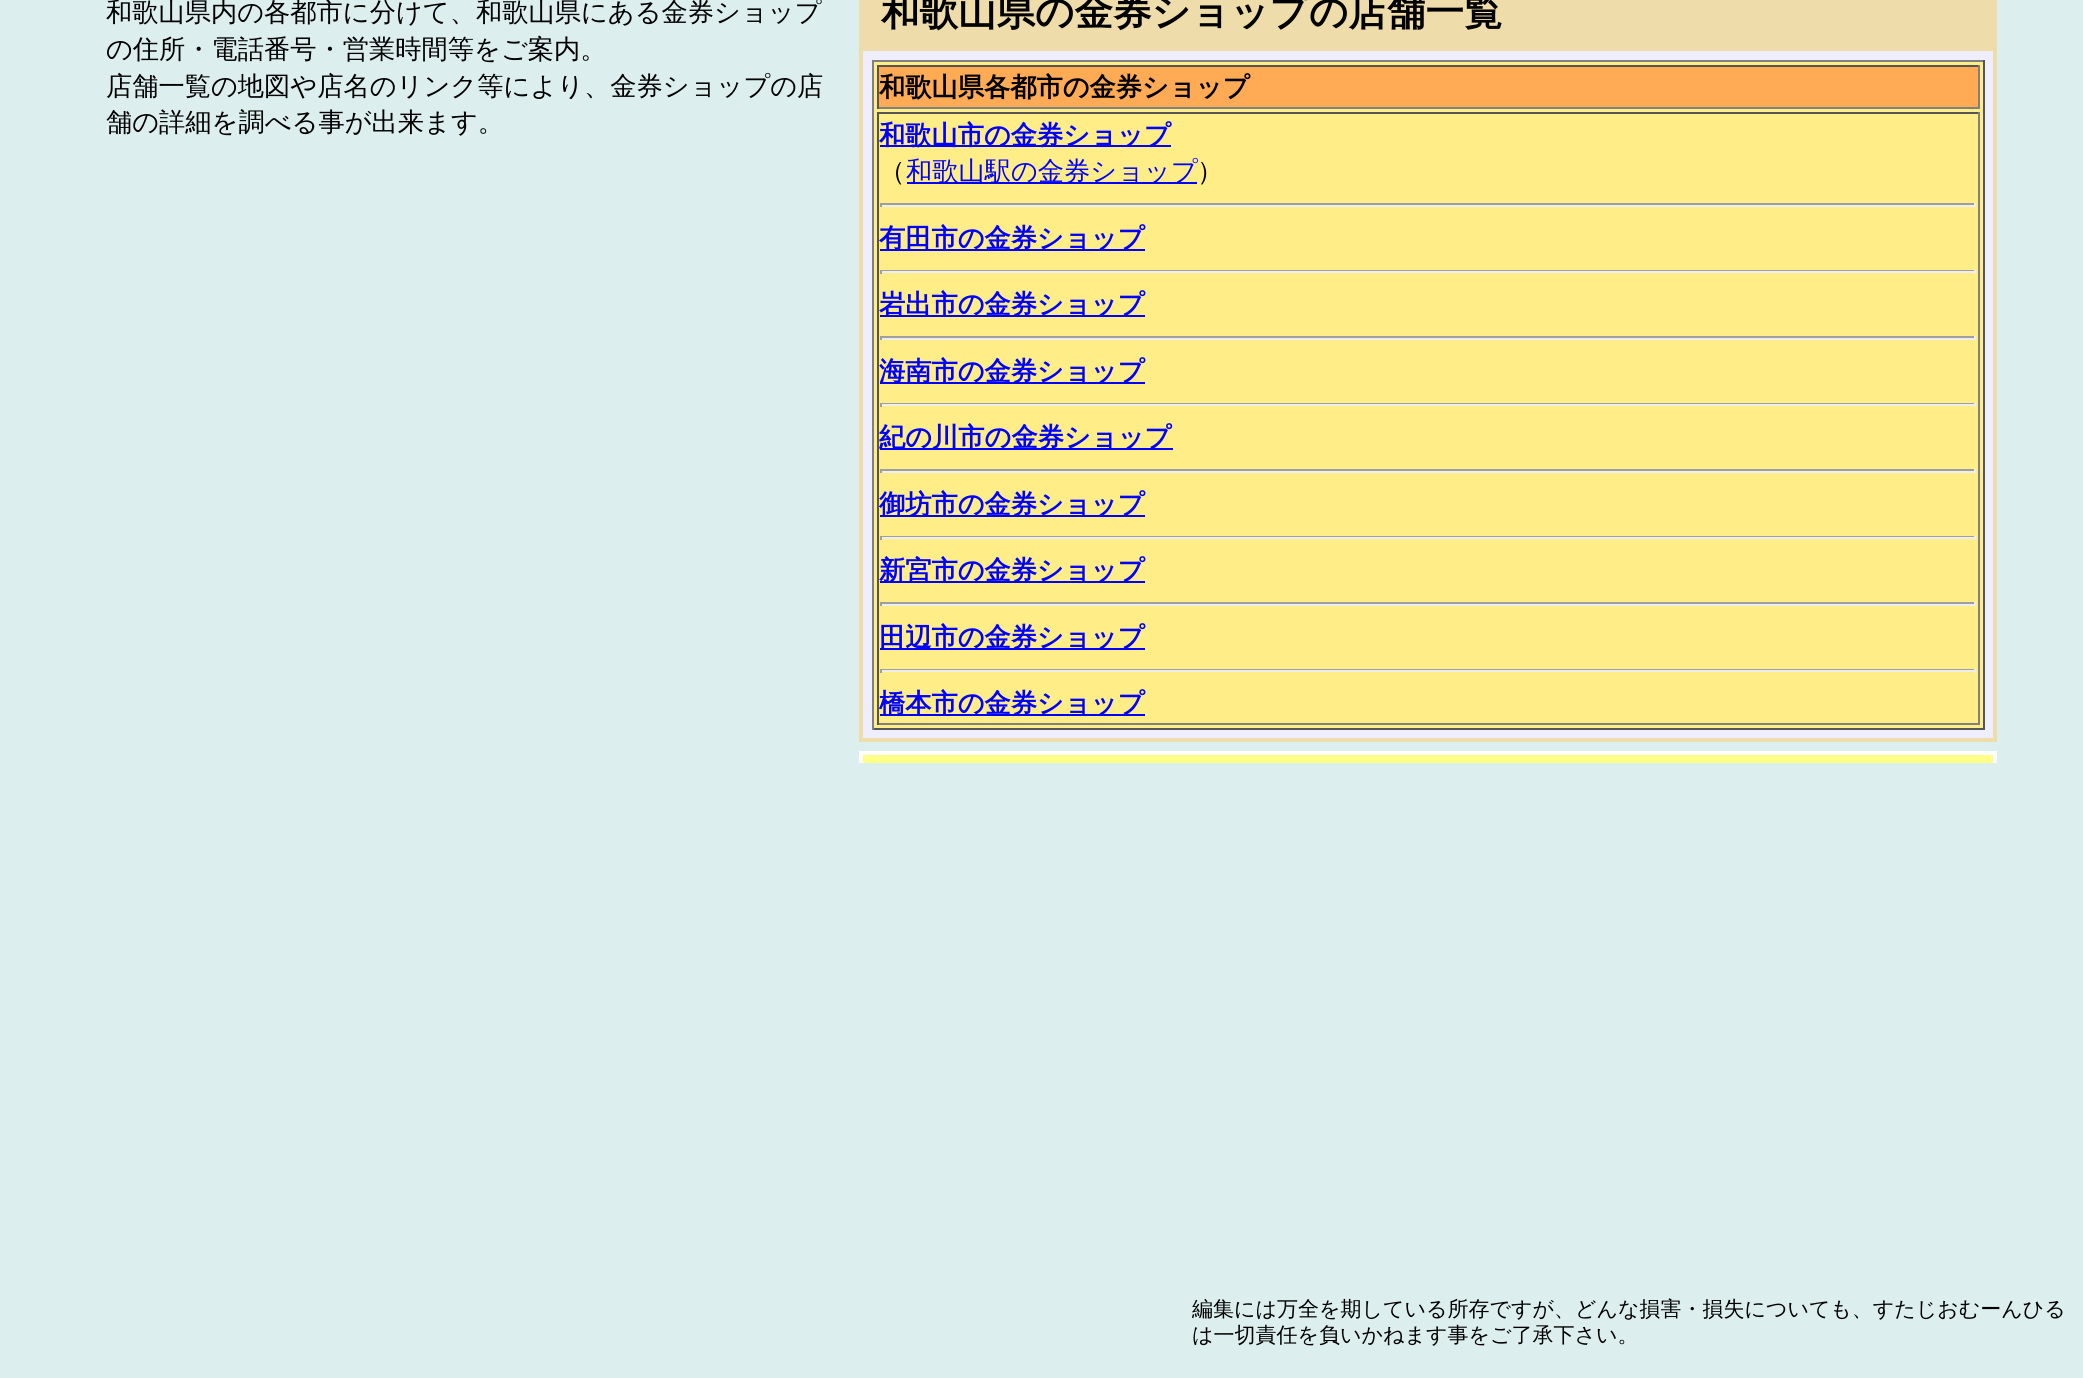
import math
import cairo



def draw(context):
    context.set_source_rgb(221 / 255, 238 / 255, 238 / 255)
    context.paint()
    context.set_source_rgb(238 / 255, 221 / 255, 170 / 255)
    context.rectangle(859, 0, 1138, 47)
    context.fill()
    context.set_source_rgb(238 / 255, 238 / 255, 1)
    context.rectangle(861, 49, 1134, 691)
    context.fill_preserve()
    context.set_source_rgb(238 / 255, 221 / 255, 170 / 255)
    context.set_line_width(4)
    context.stroke()
    context.set_source_rgb(1, 238 / 255, 136 / 255)
    context.rectangle(874, 62, 1109, 666)
    context.fill()
    context.set_source_rgb(128 / 255, 128 / 255, 128 / 255)
    context.rectangle(872, 60, 1113, 2)
    context.fill()
    context.set_source_rgb(85 / 255, 85 / 255, 85 / 255)
    context.rectangle(1983, 60, 2, 670)
    context.fill()
    context.rectangle(872, 728, 1113, 2)
    context.fill()
    context.set_source_rgb(128 / 255, 128 / 255, 128 / 255)
    context.rectangle(872, 60, 2, 670)
    context.fill()
    context.set_source_rgb(1, 170 / 255, 85 / 255)
    context.rectangle(879, 67, 1099, 40)
    context.fill()
    context.set_source_rgb(85 / 255, 85 / 255, 85 / 255)
    context.rectangle(877, 65, 1102, 2)
    context.fill()
    context.set_source_rgb(128 / 255, 128 / 255, 128 / 255)
    context.rectangle(1978, 65, 2, 44)
    context.fill()
    context.rectangle(877, 107, 1102, 2)
    context.fill()
    context.set_source_rgb(85 / 255, 85 / 255, 85 / 255)
    context.rectangle(877, 65, 2, 44)
    context.fill()
    context.rectangle(877, 112, 1102, 2)
    context.fill()
    context.set_source_rgb(128 / 255, 128 / 255, 128 / 255)
    context.rectangle(1978, 112, 2, 613)
    context.fill()
    context.rectangle(877, 723, 1102, 2)
    context.fill()
    context.set_source_rgb(85 / 255, 85 / 255, 85 / 255)
    context.rectangle(877, 112, 2, 613)
    context.fill()
    context.set_source_rgb(0, 0, 1)
    context.rectangle(880, 145, 291, 2)
    context.fill()
    context.rectangle(907, 182, 290, 2)
    context.fill()
    context.set_source_rgb(159 / 255, 159 / 255, 159 / 255)
    context.rectangle(880, 203, 1096, 2)
    context.fill()
    context.set_source_rgb(238 / 255, 238 / 255, 238 / 255)
    context.rectangle(1974, 203, 2, 4)
    context.fill()
    context.rectangle(880, 205, 1096, 2)
    context.fill()
    context.set_source_rgb(159 / 255, 159 / 255, 159 / 255)
    context.rectangle(880, 203, 2, 4)
    context.fill()
    context.set_source_rgb(0, 0, 1)
    context.rectangle(880, 249, 265, 2)
    context.fill()
    context.set_source_rgb(159 / 255, 159 / 255, 159 / 255)
    context.rectangle(880, 270, 1096, 1)
    context.fill()
    context.set_source_rgb(238 / 255, 238 / 255, 238 / 255)
    context.rectangle(1974, 270, 2, 4)
    context.fill()
    context.rectangle(880, 271, 1096, 2)
    context.fill()
    context.set_source_rgb(159 / 255, 159 / 255, 159 / 255)
    context.rectangle(880, 270, 2, 4)
    context.fill()
    context.set_source_rgb(0, 0, 1)
    context.rectangle(880, 315, 265, 2)
    context.fill()
    context.set_source_rgb(159 / 255, 159 / 255, 159 / 255)
    context.rectangle(880, 336, 1096, 2)
    context.fill()
    context.set_source_rgb(238 / 255, 238 / 255, 238 / 255)
    context.rectangle(1974, 336, 2, 4)
    context.fill()
    context.rectangle(880, 338, 1096, 2)
    context.fill()
    context.set_source_rgb(159 / 255, 159 / 255, 159 / 255)
    context.rectangle(880, 336, 2, 4)
    context.fill()
    context.set_source_rgb(0, 0, 1)
    context.rectangle(880, 382, 265, 2)
    context.fill()
    context.set_source_rgb(159 / 255, 159 / 255, 159 / 255)
    context.rectangle(880, 403, 1096, 1)
    context.fill()
    context.set_source_rgb(238 / 255, 238 / 255, 238 / 255)
    context.rectangle(1974, 403, 2, 4)
    context.fill()
    context.rectangle(880, 404, 1096, 2)
    context.fill()
    context.set_source_rgb(159 / 255, 159 / 255, 159 / 255)
    context.rectangle(880, 403, 2, 4)
    context.fill()
    context.set_source_rgb(0, 0, 1)
    context.rectangle(880, 448, 293, 2)
    context.fill()
    context.set_source_rgb(159 / 255, 159 / 255, 159 / 255)
    context.rectangle(880, 469, 1096, 2)
    context.fill()
    context.set_source_rgb(238 / 255, 238 / 255, 238 / 255)
    context.rectangle(1974, 469, 2, 4)
    context.fill()
    context.rectangle(880, 471, 1096, 2)
    context.fill()
    context.set_source_rgb(159 / 255, 159 / 255, 159 / 255)
    context.rectangle(880, 469, 2, 4)
    context.fill()
    context.set_source_rgb(0, 0, 1)
    context.rectangle(880, 515, 265, 2)
    context.fill()
    context.set_source_rgb(159 / 255, 159 / 255, 159 / 255)
    context.rectangle(880, 536, 1096, 1)
    context.fill()
    context.set_source_rgb(238 / 255, 238 / 255, 238 / 255)
    context.rectangle(1974, 536, 2, 4)
    context.fill()
    context.rectangle(880, 537, 1096, 2)
    context.fill()
    context.set_source_rgb(159 / 255, 159 / 255, 159 / 255)
    context.rectangle(880, 536, 2, 4)
    context.fill()
    context.set_source_rgb(0, 0, 1)
    context.rectangle(880, 581, 265, 2)
    context.fill()
    context.set_source_rgb(159 / 255, 159 / 255, 159 / 255)
    context.rectangle(880, 602, 1096, 2)
    context.fill()
    context.set_source_rgb(238 / 255, 238 / 255, 238 / 255)
    context.rectangle(1974, 602, 2, 4)
    context.fill()
    context.rectangle(880, 604, 1096, 2)
    context.fill()
    context.set_source_rgb(159 / 255, 159 / 255, 159 / 255)
    context.rectangle(880, 602, 2, 4)
    context.fill()
    context.set_source_rgb(0, 0, 1)
    context.rectangle(880, 648, 265, 2)
    context.fill()
    context.set_source_rgb(159 / 255, 159 / 255, 159 / 255)
    context.rectangle(880, 669, 1096, 1)
    context.fill()
    context.set_source_rgb(238 / 255, 238 / 255, 238 / 255)
    context.rectangle(1974, 669, 2, 4)
    context.fill()
    context.rectangle(880, 670, 1096, 2)
    context.fill()
    context.set_source_rgb(159 / 255, 159 / 255, 159 / 255)
    context.rectangle(880, 669, 2, 4)
    context.fill()
    context.set_source_rgb(0, 0, 1)
    context.rectangle(880, 714, 265, 2)
    context.fill()
    context.set_source_rgb(1, 1, 136 / 255)
    context.rectangle(863, 755, 1130, 8)
    context.fill()
    context.save()
    context.rectangle(859, 0, 1138, 763)
    context.clip()
    context.rectangle(861, 753, 1134, 295)
    context.set_source_rgb(1, 1, 1)
    context.stroke()
    context.restore()
    context.select_font_face("WenQuanYi Zen Hei Medium")
    context.set_font_size(26.25)
    context.set_source_rgb(0, 0, 0)
    context.move_to(106, 21)
    context.show_text("和歌山県内の各都市に分けて、和歌山県にある金券ショップ")
    context.move_to(106, 58)
    context.show_text("の住所・電話番号・営業時間等をご案内。")
    context.move_to(106, 95)
    context.show_text("店舗一覧の地図や店名のリンク等により、金券ショップの店")
    context.move_to(106, 131)
    context.show_text("舗の詳細を調べる事が出来ます。")
    context.select_font_face("WenQuanYi Zen Hei", cairo.FontSlant.NORMAL, cairo.FontWeight.BOLD)
    context.set_font_size(38.5)
    context.move_to(881, 25)
    context.show_text("和歌山県の金券ショップの店舗一覧")
    context.set_font_size(26.25)
    context.move_to(879, 96)
    context.show_text("和歌山県各都市の金券ショップ")
    context.set_source_rgb(0, 0, 1)
    context.move_to(879, 144)
    context.show_text("和歌山市の金券ショップ")
    context.select_font_face("WenQuanYi Zen Hei Medium")
    context.set_source_rgb(0, 0, 0)
    context.move_to(879, 180)
    context.show_text("（")
    context.set_source_rgb(0, 0, 1)
    context.move_to(906, 180)
    context.show_text("和歌山駅の金券ショップ")
    context.set_source_rgb(0, 0, 0)
    context.move_to(1197, 180)
    context.show_text("）")
    context.select_font_face("WenQuanYi Zen Hei", cairo.FontSlant.NORMAL, cairo.FontWeight.BOLD)
    context.set_source_rgb(0, 0, 1)
    context.move_to(879, 247)
    context.show_text("有田市の金券ショップ")
    context.move_to(879, 313)
    context.show_text("岩出市の金券ショップ")
    context.move_to(879, 380)
    context.show_text("海南市の金券ショップ")
    context.move_to(879, 446)
    context.show_text("紀の川市の金券ショップ")
    context.move_to(879, 513)
    context.show_text("御坊市の金券ショップ")
    context.move_to(879, 579)
    context.show_text("新宮市の金券ショップ")
    context.move_to(879, 646)
    context.show_text("田辺市の金券ショップ")
    context.move_to(879, 712)
    context.show_text("橋本市の金券ショップ")
    context.select_font_face("WenQuanYi Zen Hei Medium")
    context.set_font_size(21)
    context.set_source_rgb(0, 0, 0)
    context.move_to(1192, 1316)
    context.show_text("編集には万全を期している所存ですが、どんな損害・損失についても、すたじおむーんひる")
    context.move_to(1192, 1342)
    context.show_text("は一切責任を負いかねます事をご了承下さい。")


surface = cairo.ImageSurface(cairo.Format.RGB24, 2083, 1378)
context = cairo.Context(surface)
options = cairo.FontOptions()
options.set_hint_metrics(cairo.HintMetrics.OFF)
options.set_hint_style(cairo.HintStyle.NONE)
context.set_font_options(options)
context.set_miter_limit(4)
draw(context)
surface.write_to_png("out.png")
